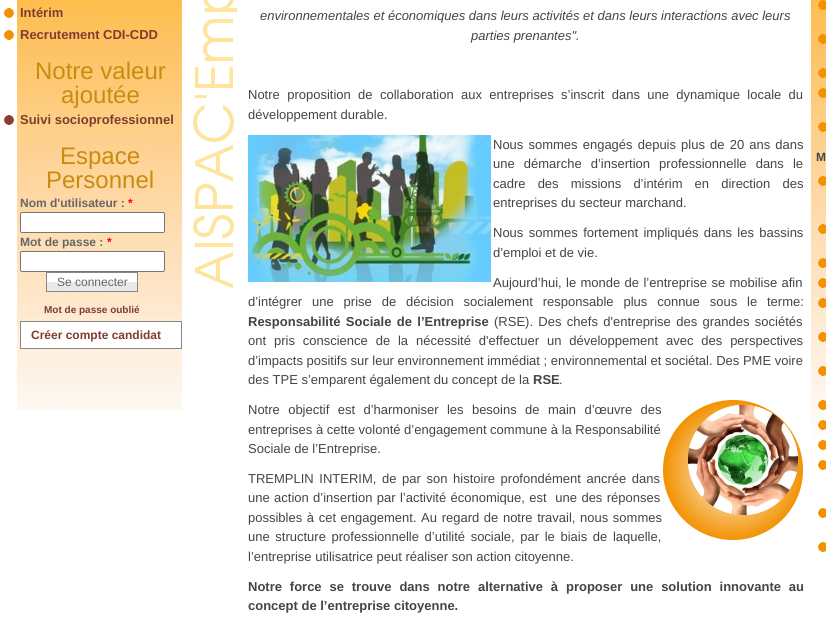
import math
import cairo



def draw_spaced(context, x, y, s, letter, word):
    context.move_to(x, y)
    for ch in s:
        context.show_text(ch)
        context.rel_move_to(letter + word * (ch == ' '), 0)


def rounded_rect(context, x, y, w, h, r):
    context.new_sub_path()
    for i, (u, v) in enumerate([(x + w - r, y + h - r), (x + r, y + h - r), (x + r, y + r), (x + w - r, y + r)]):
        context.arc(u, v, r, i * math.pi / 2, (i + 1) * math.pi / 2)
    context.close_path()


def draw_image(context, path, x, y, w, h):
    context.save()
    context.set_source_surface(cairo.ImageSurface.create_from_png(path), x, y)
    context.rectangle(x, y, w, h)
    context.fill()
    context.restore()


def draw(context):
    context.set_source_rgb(1, 1, 1)
    context.paint()
    draw_image(context, "images/1.png", 17, 0, 165, 410)
    draw_image(context, "images/2.png", 4, 8, 10, 10)
    draw_image(context, "images/2.png", 4, 30, 10, 10)
    draw_image(context, "images/3.png", 4, 115, 10, 10)
    context.set_source_rgb(1, 1, 1)
    rounded_rect(context, 20.5, 212.5, 144, 20, 1.5)
    context.fill_preserve()
    context.set_source_rgb(118 / 255, 118 / 255, 118 / 255)
    context.set_line_width(1)
    context.stroke()
    context.set_source_rgb(1, 1, 1)
    rounded_rect(context, 20.5, 251.5, 144, 20, 1.5)
    context.fill_preserve()
    context.set_source_rgb(118 / 255, 118 / 255, 118 / 255)
    context.stroke()
    context.set_source_rgb(1, 1, 1)
    context.rectangle(47, 273, 90, 9)
    context.fill()
    context.set_source_rgb(233 / 255, 233 / 255, 233 / 255)
    context.rectangle(47, 282, 90, 9)
    context.fill()
    context.rectangle(46.5, 272.5, 91, 19)
    context.set_source_rgb(136 / 255, 136 / 255, 136 / 255)
    context.stroke()
    context.set_source_rgb(1, 1, 1)
    context.rectangle(20.5, 321.5, 161, 27)
    context.fill_preserve()
    context.set_source_rgb(136 / 255, 136 / 255, 136 / 255)
    context.stroke()
    draw_image(context, "images/4.png", 193, 0, 44, 289)
    draw_image(context, "images/5.png", 248, 135, 243, 147)
    draw_image(context, "images/6.png", 663, 400, 140, 140)
    draw_image(context, "images/7.png", 688, 405, 110, 110)
    draw_image(context, "images/8.png", 811, 0, 15, 438)
    draw_image(context, "images/9.png", 818, 0, 8, 10)
    draw_image(context, "images/10.png", 818, 34, 8, 10)
    draw_image(context, "images/11.png", 818, 68, 8, 10)
    draw_image(context, "images/12.png", 818, 88, 8, 10)
    draw_image(context, "images/13.png", 818, 122, 8, 10)
    draw_image(context, "images/14.png", 818, 176, 8, 10)
    draw_image(context, "images/15.png", 818, 224, 8, 10)
    draw_image(context, "images/16.png", 818, 258, 8, 10)
    draw_image(context, "images/17.png", 818, 278, 8, 10)
    draw_image(context, "images/18.png", 818, 298, 8, 10)
    draw_image(context, "images/19.png", 818, 332, 8, 10)
    draw_image(context, "images/20.png", 818, 366, 8, 10)
    draw_image(context, "images/21.png", 818, 400, 8, 10)
    draw_image(context, "images/22.png", 818, 420, 8, 10)
    draw_image(context, "images/23.png", 818, 440, 8, 10)
    draw_image(context, "images/23.png", 818, 460, 8, 10)
    draw_image(context, "images/23.png", 818, 508, 8, 10)
    draw_image(context, "images/23.png", 818, 542, 8, 10)
    context.select_font_face("Liberation Sans", cairo.FontSlant.NORMAL, cairo.FontWeight.BOLD)
    context.set_font_size(13)
    context.set_source_rgb(129 / 255, 60 / 255, 47 / 255)
    context.move_to(20, 17)
    context.show_text("Intérim")
    context.move_to(20, 39)
    context.show_text("Recrutement CDI-CDD")
    context.select_font_face("Liberation Sans")
    context.set_font_size(24)
    context.set_source_rgb(200 / 255, 140 / 255, 15 / 255)
    context.move_to(35, 79)
    context.show_text("Notre valeur")
    context.move_to(61, 103)
    context.show_text("ajoutée")
    context.select_font_face("Liberation Sans", cairo.FontSlant.NORMAL, cairo.FontWeight.BOLD)
    context.set_font_size(13)
    context.set_source_rgb(129 / 255, 60 / 255, 47 / 255)
    context.move_to(20, 124)
    context.show_text("Suivi socioprofessionnel")
    context.select_font_face("Liberation Sans")
    context.set_font_size(24)
    context.set_source_rgb(200 / 255, 140 / 255, 15 / 255)
    context.move_to(60, 164)
    context.show_text("Espace")
    context.move_to(46, 188)
    context.show_text("Personnel")
    context.select_font_face("Liberation Sans", cairo.FontSlant.NORMAL, cairo.FontWeight.BOLD)
    context.set_font_size(12)
    context.set_source_rgb(102 / 255, 102 / 255, 102 / 255)
    context.move_to(20, 207)
    context.show_text("Nom d'utilisateur :")
    context.set_source_rgb(1, 0, 0)
    context.move_to(128, 207)
    context.show_text("*")
    context.set_source_rgb(102 / 255, 102 / 255, 102 / 255)
    context.move_to(20, 246)
    context.show_text("Mot de passe :")
    context.set_source_rgb(1, 0, 0)
    context.move_to(107, 246)
    context.show_text("*")
    context.select_font_face("Liberation Sans")
    context.set_source_rgb(102 / 255, 102 / 255, 102 / 255)
    context.move_to(57, 286)
    context.show_text("Se connecter")
    context.select_font_face("Liberation Sans", cairo.FontSlant.NORMAL, cairo.FontWeight.BOLD)
    context.set_font_size(10)
    context.set_source_rgb(129 / 255, 60 / 255, 47 / 255)
    context.move_to(44, 313)
    context.show_text("Mot de passe oublié")
    context.set_font_size(12)
    context.move_to(31, 339)
    context.show_text("Créer compte candidat")
    context.select_font_face("Liberation Sans", cairo.FontSlant.ITALIC)
    context.set_font_size(13)
    context.set_source_rgb(68 / 255, 68 / 255, 68 / 255)
    context.move_to(260, 20)
    context.show_text("environnementales et économiques dans leurs activités et dans leurs interactions avec leurs")
    context.move_to(471, 40)
    context.show_text("parties prenantes\".")
    context.select_font_face("Liberation Sans")
    draw_spaced(context, 248, 99, "Notre proposition de collaboration aux entreprises s’inscrit dans une dynamique locale du", 0, 3.75)
    context.move_to(248, 119)
    context.show_text("développement durable.")
    draw_spaced(context, 493, 149, "Nous sommes engagés depuis plus de 20 ans dans", 0, 1.5)
    draw_spaced(context, 493, 168, "une démarche d’insertion professionnelle dans le", 0, 5.5)
    draw_spaced(context, 493, 188, "cadre des missions d’intérim en direction des", 0, 8.5)
    context.move_to(493, 207)
    context.show_text("entreprises du secteur marchand.")
    draw_spaced(context, 493, 237, "Nous sommes fortement impliqués dans les bassins", 0, 1.75)
    context.move_to(493, 257)
    context.show_text("d’emploi et de vie.")
    draw_spaced(context, 493, 287, "Aujourd’hui, le monde de l’entreprise se mobilise afin", 0, 0.75)
    draw_spaced(context, 248, 306, "d’intégrer une prise de décision socialement responsable plus connue sous le terme:", 0, 6.25)
    context.select_font_face("Liberation Sans", cairo.FontSlant.NORMAL, cairo.FontWeight.BOLD)
    draw_spaced(context, 248, 326, "Responsabilité Sociale de l’Entreprise", 0, 1.75)
    context.select_font_face("Liberation Sans")
    draw_spaced(context, 494, 326, "(RSE). Des chefs d'entreprise des grandes sociétés", 0, 1.75)
    draw_spaced(context, 248, 345, "ont pris conscience de la nécessité d'effectuer un développement avec des perspectives", 0, 4.25)
    context.move_to(248, 365)
    context.show_text("d’impacts positifs sur leur environnement immédiat ; environnemental et sociétal. Des PME voire")
    context.move_to(248, 384)
    context.show_text("des TPE s’emparent également du concept de la")
    context.select_font_face("Liberation Sans", cairo.FontSlant.NORMAL, cairo.FontWeight.BOLD)
    context.move_to(533, 384)
    context.show_text("RSE")
    context.select_font_face("Liberation Sans")
    context.move_to(559, 384)
    context.show_text(".")
    draw_spaced(context, 248, 414, "Notre objectif est d’harmoniser les besoins de main d’œuvre des", 0, 4.75)
    context.move_to(248, 434)
    context.show_text("entreprises à cette volonté d’engagement commune à la Responsabilité")
    context.move_to(248, 453)
    context.show_text("Sociale de l’Entreprise.")
    draw_spaced(context, 248, 483, "TREMPLIN INTERIM, de par son histoire profondément ancrée dans", 0, 2)
    draw_spaced(context, 248, 502, "une action d’insertion par l’activité économique, est  une des réponses", 0, 0.75)
    draw_spaced(context, 248, 522, "possibles à cet engagement. Au regard de notre travail, nous sommes", 0, 1)
    draw_spaced(context, 248, 541, "une structure professionnelle d’utilité sociale, par le biais de laquelle,", 0, 2)
    context.move_to(248, 561)
    context.show_text("l’entreprise utilisatrice peut réaliser son action citoyenne.")
    context.select_font_face("Liberation Sans", cairo.FontSlant.NORMAL, cairo.FontWeight.BOLD)
    draw_spaced(context, 248, 591, "Notre force se trouve dans notre alternative à proposer une solution innovante au", 0, 4.25)
    context.move_to(248, 610)
    context.show_text("concept de l’entreprise citoyenne.")
    context.set_font_size(12)
    context.move_to(816, 161)
    context.show_text("M")


surface = cairo.ImageSurface(cairo.Format.RGB24, 826, 633)
context = cairo.Context(surface)
options = cairo.FontOptions()
options.set_hint_metrics(cairo.HintMetrics.OFF)
options.set_hint_style(cairo.HintStyle.NONE)
context.set_font_options(options)
context.set_miter_limit(4)
draw(context)
surface.write_to_png("out.png")
